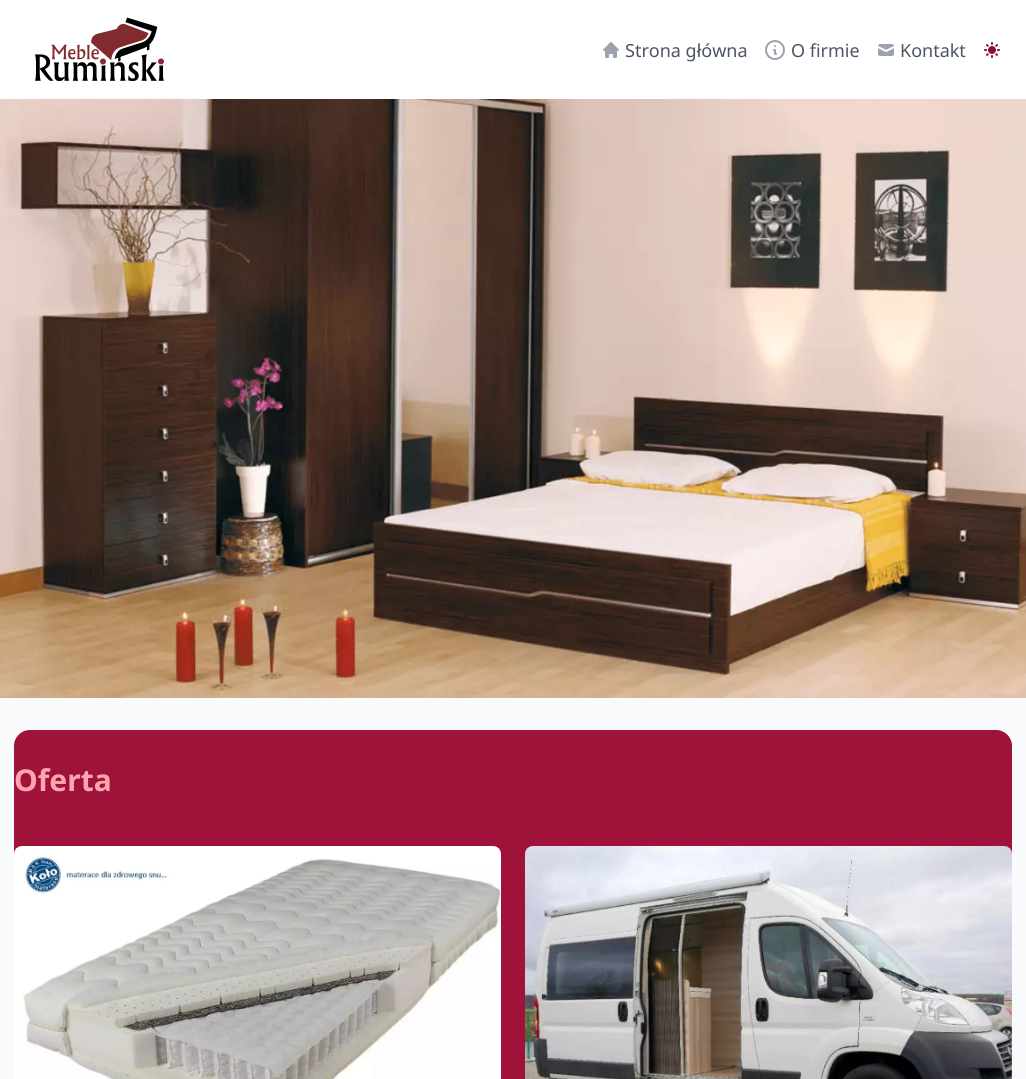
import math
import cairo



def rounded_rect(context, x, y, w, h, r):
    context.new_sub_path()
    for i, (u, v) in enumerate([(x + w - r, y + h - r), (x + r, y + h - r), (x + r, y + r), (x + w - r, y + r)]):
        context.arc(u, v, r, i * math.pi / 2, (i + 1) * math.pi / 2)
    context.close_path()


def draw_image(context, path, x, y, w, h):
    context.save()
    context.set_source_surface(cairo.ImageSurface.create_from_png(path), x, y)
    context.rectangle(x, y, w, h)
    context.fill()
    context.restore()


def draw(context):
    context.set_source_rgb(249 / 255, 250 / 255, 251 / 255)
    context.paint()
    context.set_source_rgb(1, 1, 1)
    context.rectangle(0, 0, 1026, 99)
    context.fill()
    draw_image(context, "images/1.png", 35, 17, 129, 65)
    draw_image(context, "images/2.png", 603, 42, 16, 16)
    draw_image(context, "images/3.png", 765, 40, 20, 20)
    draw_image(context, "images/4.png", 878, 44, 16, 12)
    draw_image(context, "images/5.png", 984, 42, 16, 16)
    draw_image(context, "images/6.png", 0, 99, 1026, 599)
    context.set_source_rgb(159 / 255, 18 / 255, 57 / 255)
    rounded_rect(context, 14, 730, 998, 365, 16)
    context.fill()
    draw_image(context, "images/7.png", 14, 846, 487, 233)
    draw_image(context, "images/8.png", 525, 846, 487, 233)
    context.select_font_face("Noto Sans")
    context.set_font_size(18)
    context.set_source_rgb(75 / 255, 85 / 255, 99 / 255)
    context.move_to(625, 57)
    context.show_text("Strona główna")
    context.move_to(791, 57)
    context.show_text("O firmie")
    context.move_to(900, 57)
    context.show_text("Kontakt")
    context.select_font_face("Noto Sans", cairo.FontSlant.NORMAL, cairo.FontWeight.BOLD)
    context.set_font_size(30)
    context.set_source_rgb(253 / 255, 164 / 255, 175 / 255)
    context.move_to(14, 791)
    context.show_text("Oferta")


surface = cairo.ImageSurface(cairo.Format.RGB24, 1026, 1079)
context = cairo.Context(surface)
options = cairo.FontOptions()
options.set_hint_metrics(cairo.HintMetrics.OFF)
options.set_hint_style(cairo.HintStyle.NONE)
context.set_font_options(options)
context.set_miter_limit(4)
draw(context)
surface.write_to_png("out.png")
